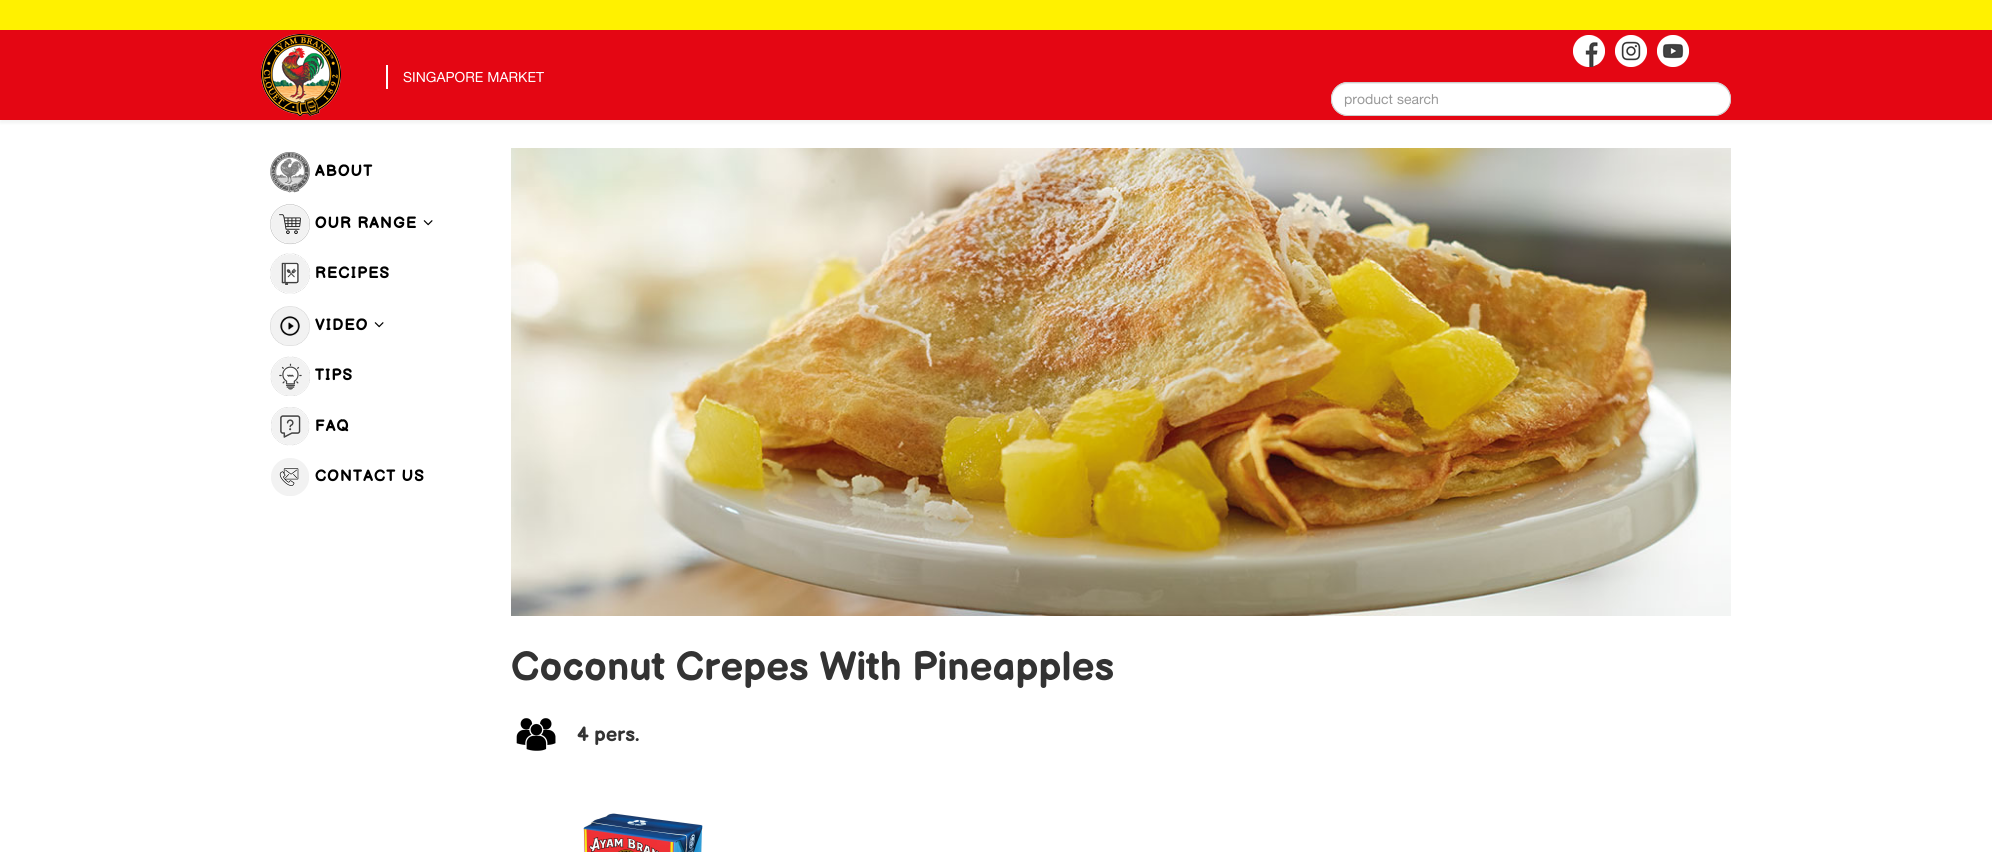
import math
import cairo



def draw_spaced(context, x, y, s, letter, word):
    context.move_to(x, y)
    for ch in s:
        context.show_text(ch)
        context.rel_move_to(letter + word * (ch == ' '), 0)


def rounded_rect(context, x, y, w, h, r):
    context.new_sub_path()
    for i, (u, v) in enumerate([(x + w - r, y + h - r), (x + r, y + h - r), (x + r, y + r), (x + w - r, y + r)]):
        context.arc(u, v, r, i * math.pi / 2, (i + 1) * math.pi / 2)
    context.close_path()


def draw_shadow(context, x, y, w, h, r, blur, alpha):
    context.push_group_with_content(cairo.Content.ALPHA)
    context.set_operator(cairo.Operator.SOURCE)
    for i in range(15, -16, -2):
        e = blur * i / 6
        if min(w, h) + 2 * e > 0:
            context.set_source_rgba(0, 0, 0, alpha * math.erfc((i - 1) / 8.5) / 2)
            rounded_rect(context, x - e, y - e, w + 2 * e, h + 2 * e, max(0, min(r + e + blur * .6, min(w, h) / 2 + e)))
            context.fill()
    context.mask(context.pop_group())


def draw_image(context, path, x, y, w, h):
    context.save()
    context.set_source_surface(cairo.ImageSurface.create_from_png(path), x, y)
    context.rectangle(x, y, w, h)
    context.fill()
    context.restore()


def draw(context):
    context.set_source_rgb(1, 1, 1)
    context.paint()
    context.set_source_rgb(1, 241 / 255, 0)
    context.rectangle(0, 0, 1992, 30)
    context.fill()
    context.set_source_rgb(0, 0, 0)
    draw_shadow(context, 0, 33, 1992, 90, 0, 1.5, 0.05)
    context.set_source_rgb(228 / 255, 6 / 255, 19 / 255)
    context.rectangle(0, 30, 1992, 90)
    context.fill()
    draw_image(context, "images/1.png", 261, 34, 80, 82)
    context.set_source_rgb(1, 1, 1)
    context.rectangle(386, 65, 2, 24)
    context.fill()
    draw_image(context, "images/2.png", 1573, 35, 32, 32)
    draw_image(context, "images/3.png", 1615, 35, 32, 32)
    draw_image(context, "images/4.png", 1657, 35, 32, 32)
    rounded_rect(context, 1331, 82, 400, 34, 17)
    context.fill()
    context.set_source_rgb(236 / 255, 236 / 255, 236 / 255)
    context.new_path()
    context.move_to(1348, 84)
    context.line_to(1714, 84)
    context.curve_to(1723, 84, 1730, 91, 1730, 99)
    context.curve_to(1730, 91, 1723, 83, 1714, 83)
    context.line_to(1348, 83)
    context.curve_to(1339, 83, 1332, 91, 1332, 99)
    context.curve_to(1332, 91, 1339, 84, 1348, 84)
    context.close_path()
    context.fill()
    rounded_rect(context, 1331.5, 82.5, 399, 33, 16.5)
    context.set_source_rgb(204 / 255, 204 / 255, 204 / 255)
    context.set_line_width(1)
    context.stroke()
    draw_image(context, "images/5.png", 270, 152, 40, 41)
    draw_image(context, "images/6.png", 270, 204, 40, 41)
    draw_image(context, "images/7.png", 423, 220, 10, 6)
    draw_image(context, "images/8.png", 270, 253, 40, 41)
    draw_image(context, "images/9.png", 270, 306, 40, 40)
    draw_image(context, "images/7.png", 374, 322, 10, 6)
    draw_image(context, "images/10.png", 270, 356, 40, 40)
    draw_image(context, "images/11.png", 271, 407, 39, 39)
    draw_image(context, "images/12.png", 271, 458, 38, 38)
    draw_image(context, "images/13.png", 511, 148, 1220, 468)
    draw_image(context, "images/14.png", 516, 718, 40, 33)
    draw_image(context, "images/15.png", 583, 813, 120, 39)
    context.select_font_face("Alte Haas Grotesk")
    context.set_font_size(14)
    context.set_source_rgb(1, 1, 1)
    context.move_to(403, 82)
    context.show_text("SINGAPORE MARKET")
    context.set_source_rgb(153 / 255, 153 / 255, 153 / 255)
    context.move_to(1344, 104)
    context.show_text("product search")
    context.select_font_face("Balsamiq Sans", cairo.FontSlant.NORMAL, cairo.FontWeight.BOLD)
    context.set_font_size(16)
    context.set_source_rgb(0, 0, 0)
    draw_spaced(context, 315, 176, "ABOUT", 1, 0)
    draw_spaced(context, 315, 228, "OUR RANGE", 1, 0)
    draw_spaced(context, 315, 278, "RECIPES", 1, 0)
    draw_spaced(context, 315, 330, "VIDEO", 1, 0)
    draw_spaced(context, 315, 380, "TIPS", 1, 0)
    draw_spaced(context, 315, 431, "FAQ", 1, 0)
    draw_spaced(context, 315, 481, "CONTACT US", 1, 0)
    context.set_font_size(40)
    context.set_source_rgb(51 / 255, 51 / 255, 51 / 255)
    context.move_to(511, 680)
    context.show_text("Coconut Crepes With Pineapples")
    context.set_font_size(20)
    context.move_to(577, 741)
    context.show_text("4 pers.")


surface = cairo.ImageSurface(cairo.Format.RGB24, 1992, 852)
context = cairo.Context(surface)
options = cairo.FontOptions()
options.set_hint_metrics(cairo.HintMetrics.OFF)
options.set_hint_style(cairo.HintStyle.NONE)
context.set_font_options(options)
context.set_miter_limit(4)
draw(context)
surface.write_to_png("out.png")
